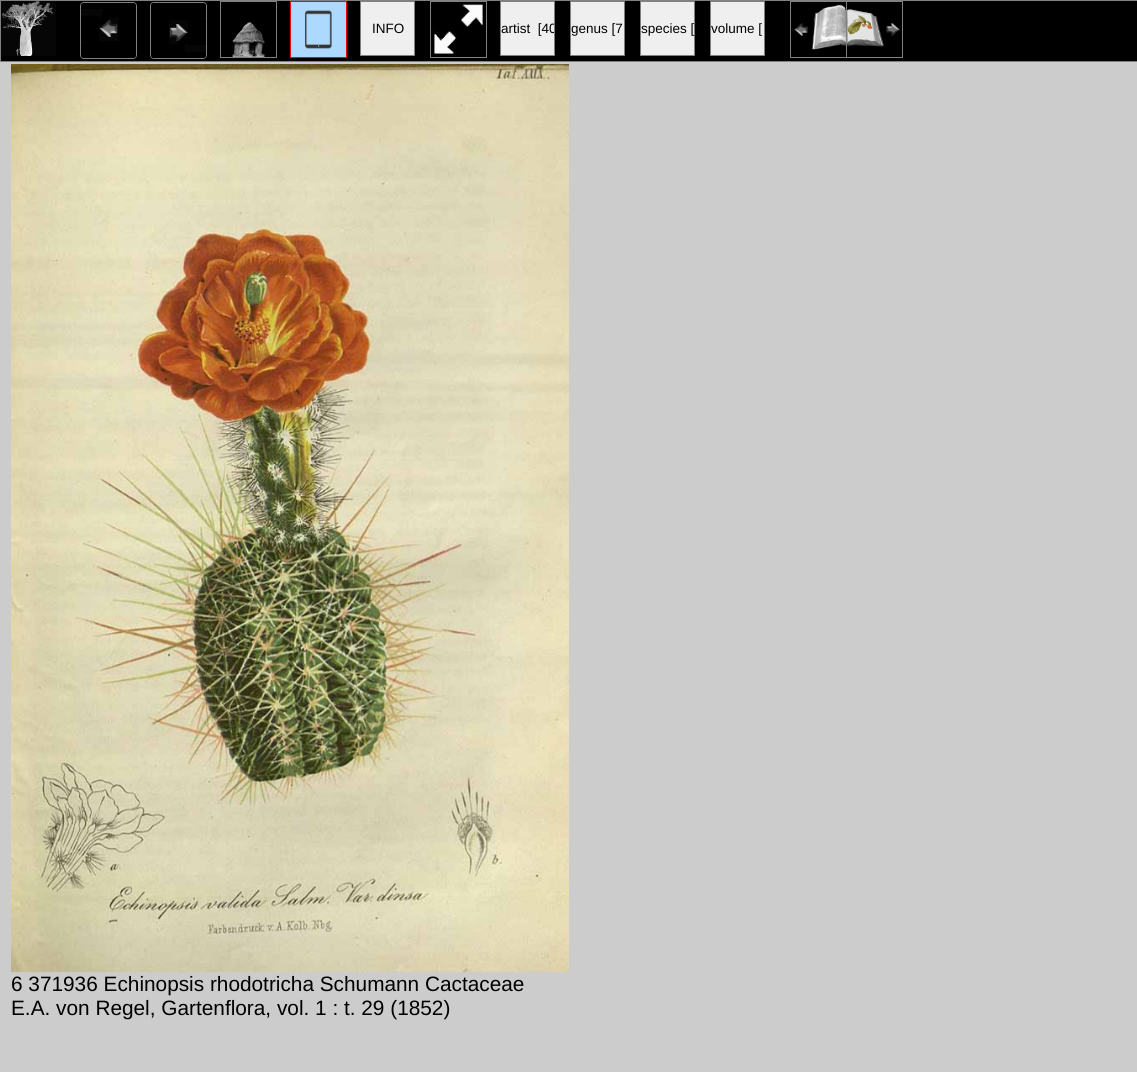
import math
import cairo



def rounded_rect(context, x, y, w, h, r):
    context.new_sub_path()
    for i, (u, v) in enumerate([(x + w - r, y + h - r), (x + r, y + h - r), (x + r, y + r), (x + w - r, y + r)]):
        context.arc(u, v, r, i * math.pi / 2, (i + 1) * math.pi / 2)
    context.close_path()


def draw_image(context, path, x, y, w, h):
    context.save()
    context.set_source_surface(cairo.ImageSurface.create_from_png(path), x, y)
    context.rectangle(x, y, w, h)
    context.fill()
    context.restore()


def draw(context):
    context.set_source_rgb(204 / 255, 204 / 255, 204 / 255)
    context.paint()
    context.set_source_rgb(0, 0, 0)
    context.rectangle(0.5, 0.5, 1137, 61)
    context.fill_preserve()
    context.set_source_rgb(128 / 255, 128 / 255, 128 / 255)
    context.set_line_width(1)
    context.stroke()
    draw_image(context, "images/1.png", 1, 1, 55, 55)
    rounded_rect(context, 80.5, 2.5, 56, 56, 3.5)
    context.stroke()
    draw_image(context, "images/2.png", 81, 3, 55, 55)
    rounded_rect(context, 150.5, 2.5, 56, 56, 3.5)
    context.stroke()
    draw_image(context, "images/3.png", 151, 3, 55, 55)
    context.rectangle(220.5, 1.5, 56, 56)
    context.stroke()
    draw_image(context, "images/4.png", 232, 22, 33, 35)
    context.rectangle(290.5, 1.5, 56, 56)
    context.set_source_rgb(1, 0, 0)
    context.stroke()
    draw_image(context, "images/5.png", 291, 2, 55, 55)
    context.set_source_rgb(239 / 255, 239 / 255, 239 / 255)
    context.rectangle(360.5, 1.5, 54, 54)
    context.fill_preserve()
    context.set_source_rgb(128 / 255, 128 / 255, 128 / 255)
    context.stroke()
    context.rectangle(430.5, 1.5, 56, 56)
    context.stroke()
    draw_image(context, "images/6.png", 433, 4, 50, 50)
    context.set_source_rgb(239 / 255, 239 / 255, 239 / 255)
    context.rectangle(500.5, 1.5, 54, 54)
    context.fill_preserve()
    context.set_source_rgb(128 / 255, 128 / 255, 128 / 255)
    context.stroke()
    context.set_source_rgb(239 / 255, 239 / 255, 239 / 255)
    context.rectangle(570.5, 1.5, 54, 54)
    context.fill_preserve()
    context.set_source_rgb(128 / 255, 128 / 255, 128 / 255)
    context.stroke()
    context.set_source_rgb(239 / 255, 239 / 255, 239 / 255)
    context.rectangle(640.5, 1.5, 54, 54)
    context.fill_preserve()
    context.set_source_rgb(128 / 255, 128 / 255, 128 / 255)
    context.stroke()
    context.set_source_rgb(239 / 255, 239 / 255, 239 / 255)
    context.rectangle(710.5, 1.5, 54, 54)
    context.fill_preserve()
    context.set_source_rgb(128 / 255, 128 / 255, 128 / 255)
    context.stroke()
    context.rectangle(790.5, 1.5, 56, 56)
    context.stroke()
    draw_image(context, "images/7.png", 794, 4, 52, 46)
    context.rectangle(846.5, 1.5, 56, 56)
    context.stroke()
    draw_image(context, "images/8.png", 847, 9, 53, 38)
    draw_image(context, "images/9.png", 11, 64, 558, 909)
    context.select_font_face("Liberation Sans")
    context.set_font_size(13.5)
    context.set_source_rgb(0, 0, 0)
    context.move_to(372, 33)
    context.show_text("INFO")
    context.save()
    context.rectangle(501, 2, 53, 53)
    context.clip()
    context.move_to(501, 33)
    context.show_text("artist  [40")
    context.restore()
    context.move_to(571, 33)
    context.show_text("genus [7")
    context.move_to(641, 33)
    context.show_text("species [")
    context.move_to(711, 33)
    context.show_text("volume [")
    context.set_font_size(20.8)
    context.move_to(11, 991)
    context.show_text("6 371936 Echinopsis rhodotricha Schumann Cactaceae")
    context.move_to(11, 1015)
    context.show_text("E.A. von Regel, Gartenflora, vol. 1 : t. 29 (1852)")


surface = cairo.ImageSurface(cairo.Format.RGB24, 1137, 1072)
context = cairo.Context(surface)
options = cairo.FontOptions()
options.set_hint_metrics(cairo.HintMetrics.OFF)
options.set_hint_style(cairo.HintStyle.NONE)
context.set_font_options(options)
context.set_miter_limit(4)
draw(context)
surface.write_to_png("out.png")
